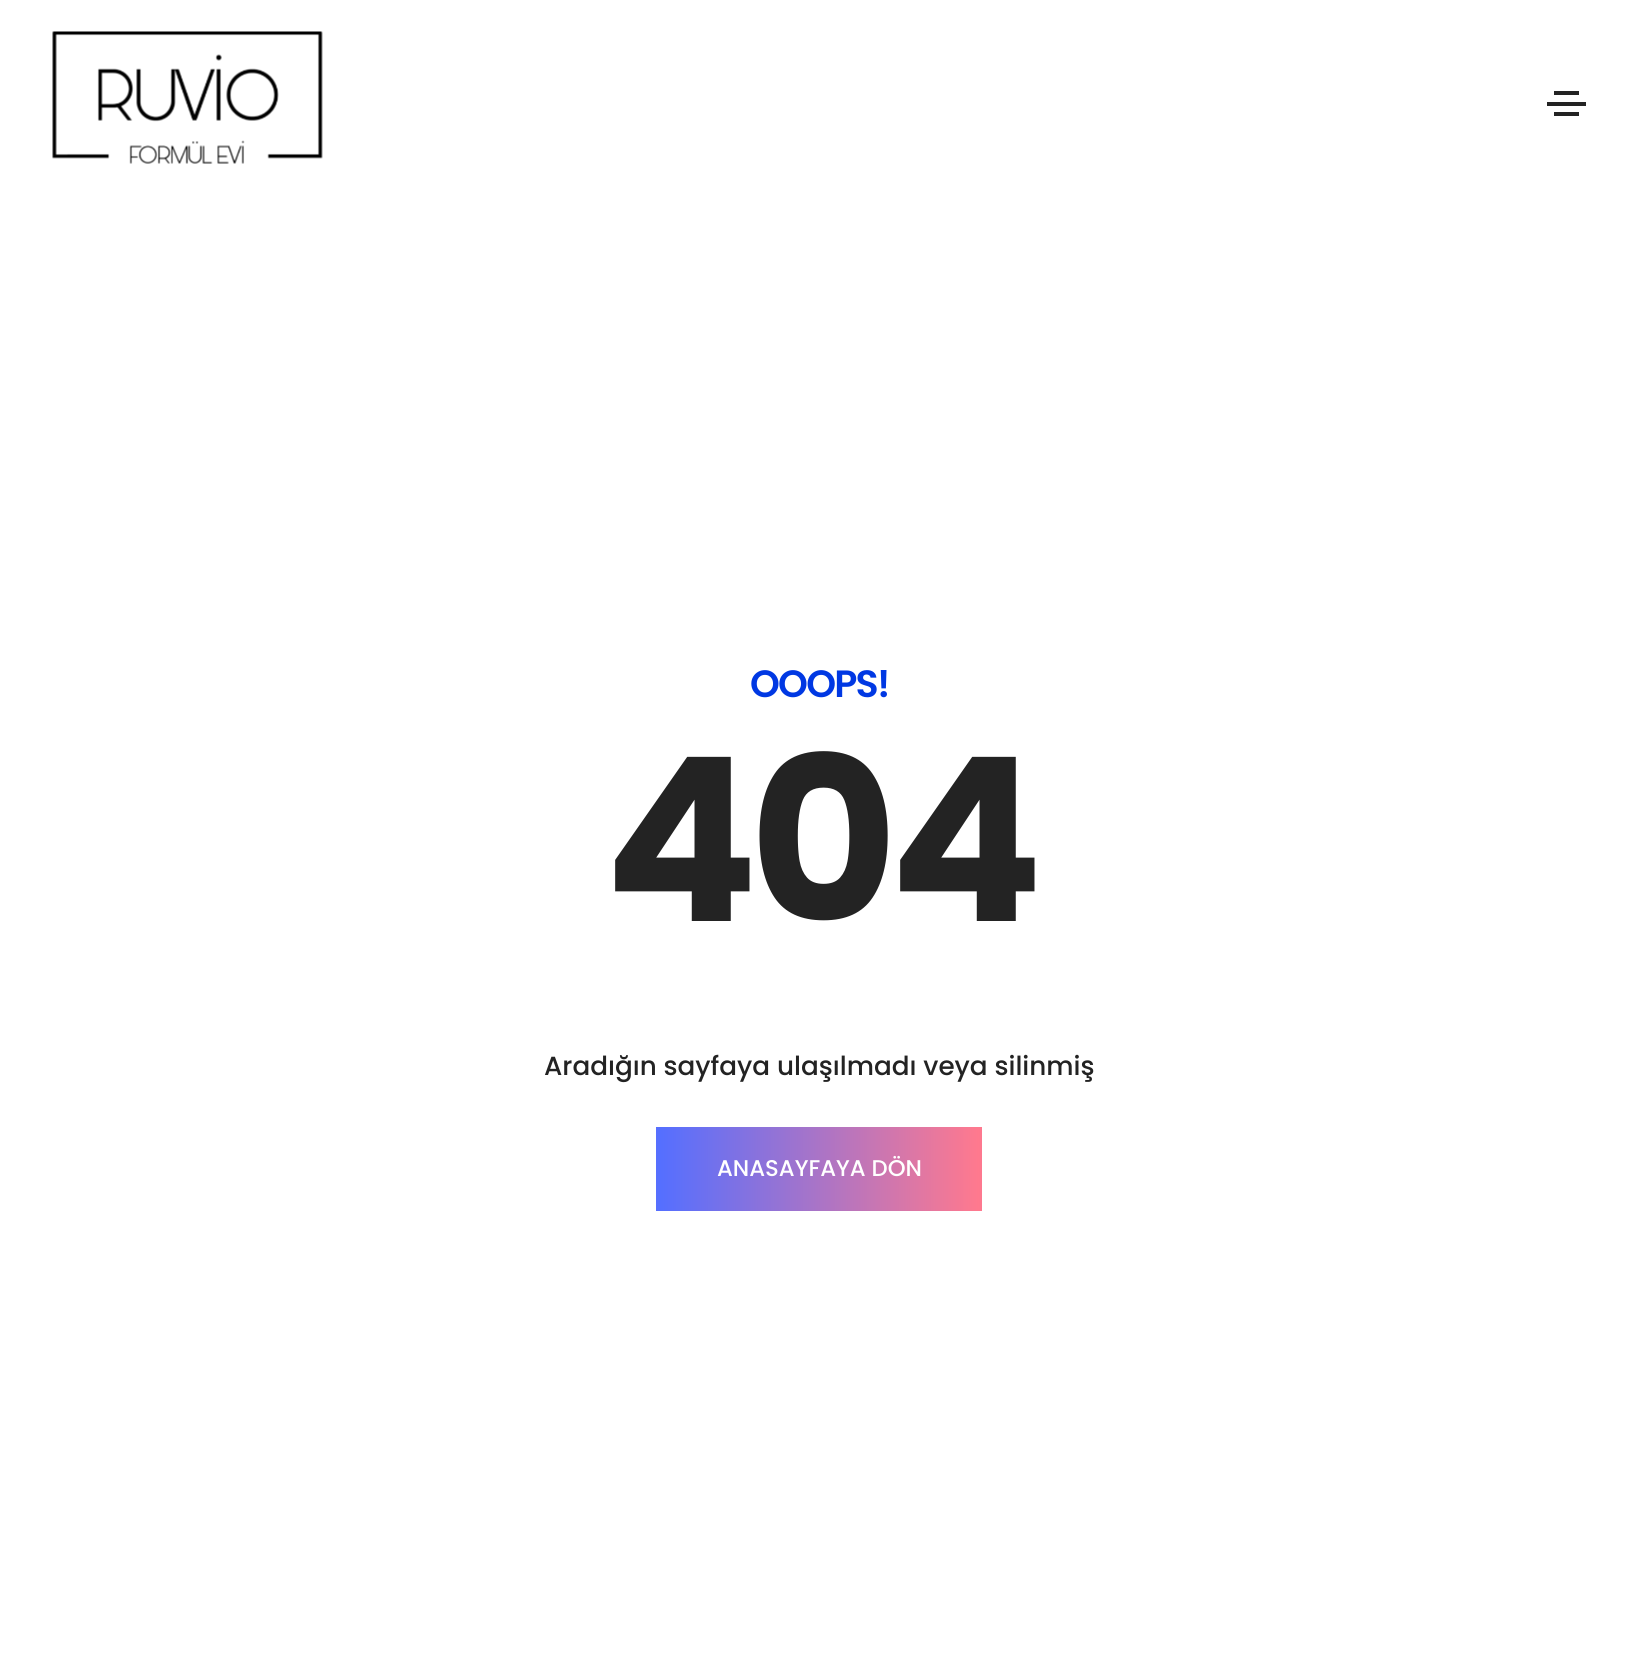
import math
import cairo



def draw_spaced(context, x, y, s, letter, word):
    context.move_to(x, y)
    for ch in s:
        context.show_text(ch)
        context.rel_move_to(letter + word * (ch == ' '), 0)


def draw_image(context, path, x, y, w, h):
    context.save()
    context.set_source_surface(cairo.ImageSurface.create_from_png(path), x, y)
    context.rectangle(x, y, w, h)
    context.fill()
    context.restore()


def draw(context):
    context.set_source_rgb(1, 1, 1)
    context.paint()
    draw_image(context, "images/1.png", 52, 31, 271, 133)
    context.set_source_rgb(35 / 255, 35 / 255, 35 / 255)
    context.rectangle(1554, 91, 25, 4)
    context.fill()
    context.rectangle(1547, 102, 39, 4)
    context.fill()
    context.rectangle(1554, 112, 25, 4)
    context.fill()
    gradient = cairo.LinearGradient(23, 1169, 660, 1169)
    gradient.add_color_stop_rgba(0, 85 / 255, 111 / 255, 1, 1)
    gradient.add_color_stop_rgba(0.5, 1, 121 / 255, 142 / 255, 1)
    gradient.add_color_stop_rgba(1, 85 / 255, 111 / 255, 1, 1)
    context.set_source(gradient)
    context.rectangle(656, 1127, 4, 84)
    context.fill()
    gradient = cairo.LinearGradient(660, 1169, 1297, 1169)
    gradient.add_color_stop_rgba(0, 85 / 255, 111 / 255, 1, 1)
    gradient.add_color_stop_rgba(0.5, 1, 121 / 255, 142 / 255, 1)
    gradient.add_color_stop_rgba(1, 85 / 255, 111 / 255, 1, 1)
    context.set_source(gradient)
    context.rectangle(660, 1127, 322, 84)
    context.fill()
    context.select_font_face("Poppins SemiBold")
    context.set_font_size(38)
    context.set_source_rgb(0, 56 / 255, 227 / 255)
    draw_spaced(context, 750, 697, "OOOPS!", -1.75, 0)
    context.select_font_face("Poppins", cairo.FontSlant.NORMAL, cairo.FontWeight.BOLD)
    context.set_font_size(228)
    context.set_source_rgb(35 / 255, 35 / 255, 35 / 255)
    draw_spaced(context, 604, 921, "404", -9, 0)
    context.select_font_face("Poppins Medium")
    context.set_font_size(26.25)
    context.move_to(544, 1075)
    context.show_text("Aradığın sayfaya ulaşılmadı veya silinmiş")
    context.set_font_size(22.75)
    context.set_source_rgb(1, 1, 1)
    context.move_to(717, 1176)
    context.show_text("ANASAYFAYA DÖN")


surface = cairo.ImageSurface(cairo.Format.RGB24, 1638, 1665)
context = cairo.Context(surface)
options = cairo.FontOptions()
options.set_hint_metrics(cairo.HintMetrics.OFF)
options.set_hint_style(cairo.HintStyle.NONE)
context.set_font_options(options)
context.set_miter_limit(4)
draw(context)
surface.write_to_png("out.png")
